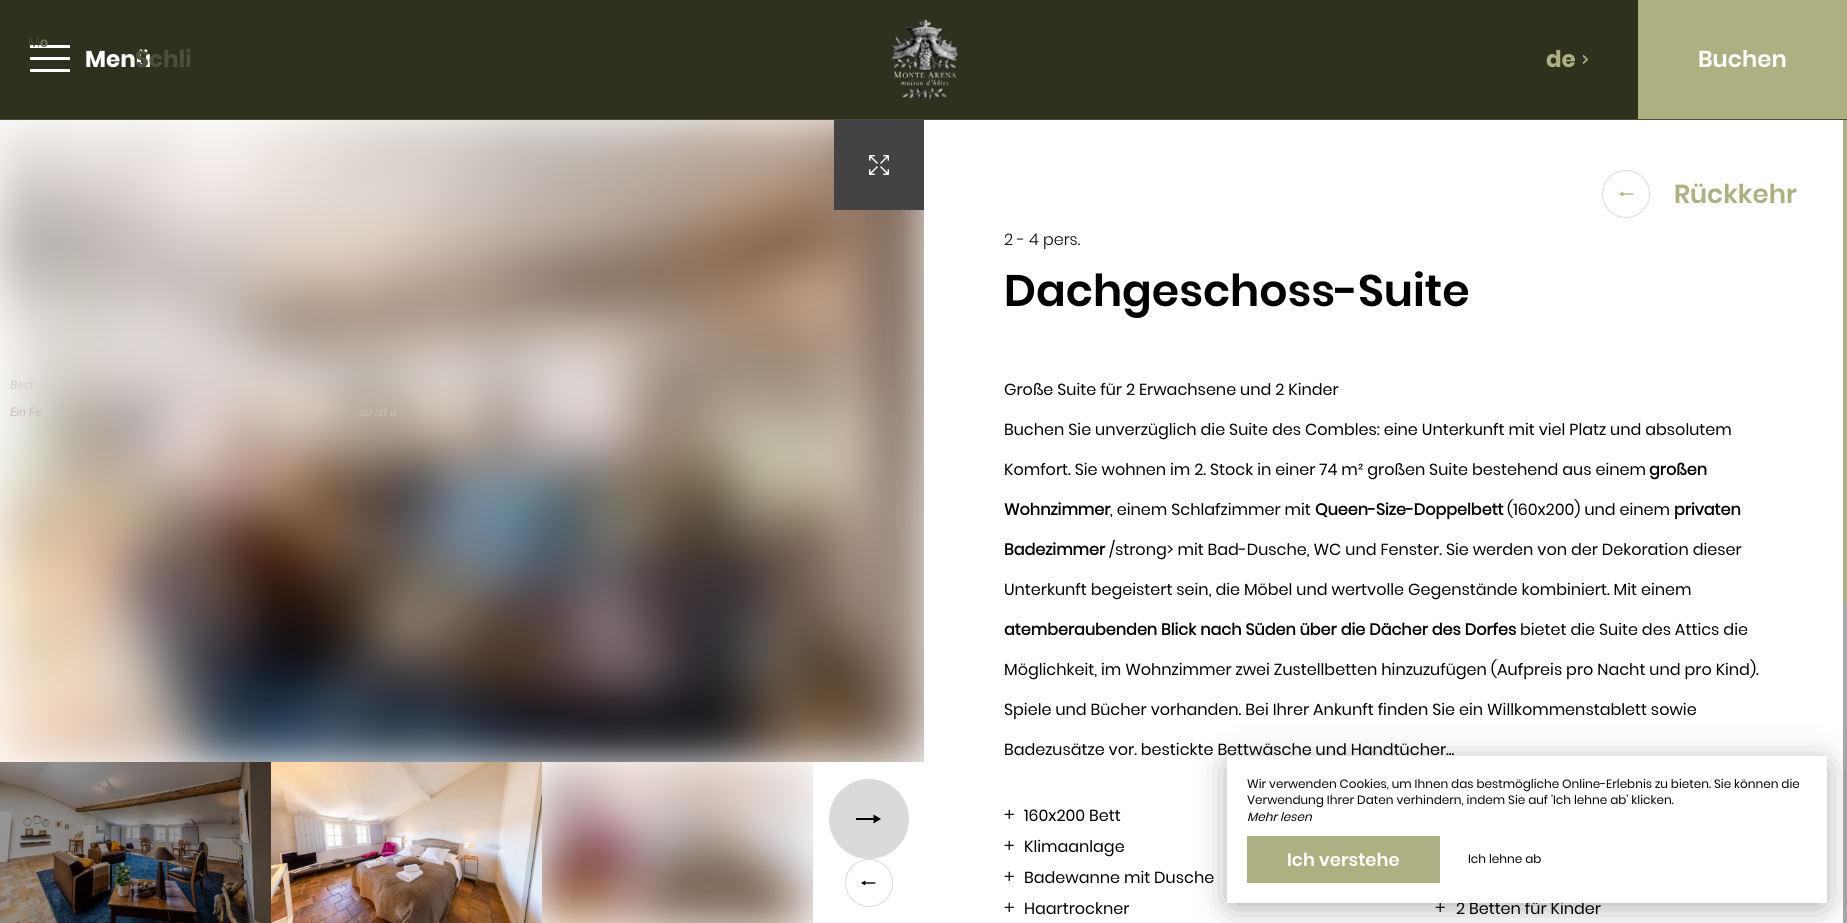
import math
import cairo



def rounded_rect(context, x, y, w, h, r):
    context.new_sub_path()
    for i, (u, v) in enumerate([(x + w - r, y + h - r), (x + r, y + h - r), (x + r, y + r), (x + w - r, y + r)]):
        context.arc(u, v, r, i * math.pi / 2, (i + 1) * math.pi / 2)
    context.close_path()


def draw_shadow(context, x, y, w, h, r, blur, alpha):
    context.push_group_with_content(cairo.Content.ALPHA)
    context.set_operator(cairo.Operator.SOURCE)
    for i in range(15, -16, -2):
        e = blur * i / 6
        if min(w, h) + 2 * e > 0:
            context.set_source_rgba(0, 0, 0, alpha * math.erfc((i - 1) / 8.5) / 2)
            rounded_rect(context, x - e, y - e, w + 2 * e, h + 2 * e, max(0, min(r + e + blur * .6, min(w, h) / 2 + e)))
            context.fill()
    context.mask(context.pop_group())


def draw_image(context, path, x, y, w, h):
    context.save()
    context.set_source_surface(cairo.ImageSurface.create_from_png(path), x, y)
    context.rectangle(x, y, w, h)
    context.fill()
    context.restore()


def draw(context):
    context.set_source_rgb(1, 1, 1)
    context.paint()
    context.set_source_rgb(47 / 255, 48 / 255, 30 / 255)
    context.rectangle(0, 0, 1638, 119)
    context.fill()
    context.set_source_rgb(78 / 255, 79 / 255, 50 / 255)
    context.rectangle(0, 119, 1847, 1)
    context.fill()
    context.set_source_rgb(1, 1, 1)
    context.rectangle(30, 45, 40, 3)
    context.fill()
    context.rectangle(30, 57, 40, 3)
    context.fill()
    context.rectangle(30, 69, 40, 3)
    context.fill()
    draw_image(context, "images/1.png", 890, 19, 69, 81)
    draw_image(context, "images/2.png", 1582, 55, 7, 9)
    context.set_source_rgb(174 / 255, 176 / 255, 130 / 255)
    context.rectangle(1638, 0, 209, 119)
    context.fill()
    draw_image(context, "images/3.png", 0, 120, 924, 642)
    context.set_source_rgb(67 / 255, 67 / 255, 67 / 255)
    context.rectangle(834, 120, 90, 90)
    context.fill()
    draw_image(context, "images/4.png", 869, 155, 20, 20)
    draw_image(context, "images/5.png", 0, 762, 271, 161)
    draw_image(context, "images/6.png", 271, 762, 271, 161)
    draw_image(context, "images/7.png", 542, 762, 271, 161)
    context.set_source_rgb(218 / 255, 218 / 255, 218 / 255)
    context.arc(869, 819, 40, 0, 2 * math.pi)
    context.fill()
    context.set_source_rgb(0, 0, 0)
    context.new_path()
    context.move_to(881, 819)
    context.line_to(873.5, 823.5)
    context.line_to(873.5, 820)
    context.line_to(856, 820)
    context.line_to(856, 818)
    context.line_to(873.5, 818)
    context.line_to(873.5, 814.5)
    context.close_path()
    context.fill()
    context.arc(869, 883, 23.5, 0, 2 * math.pi)
    context.set_source_rgb(218 / 255, 218 / 255, 218 / 255)
    context.set_line_width(1)
    context.stroke()
    draw_image(context, "images/8.png", 861, 880, 15, 6)
    context.arc(1626, 194, 23.5, 0, 2 * math.pi)
    context.stroke()
    draw_image(context, "images/9.png", 1619, 191, 14, 6)
    context.set_source_rgb(169 / 255, 169 / 255, 169 / 255)
    context.rectangle(1843, 603, 4, 320)
    context.fill()
    context.set_source_rgb(174 / 255, 176 / 255, 130 / 255)
    context.rectangle(1843, 120, 4, 483)
    context.fill()
    context.save()
    context.set_fill_rule(cairo.FillRule.EVEN_ODD)
    context.new_path()
    context.move_to(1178, 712)
    context.line_to(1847, 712)
    context.line_to(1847, 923)
    context.line_to(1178, 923)
    context.close_path()
    context.move_to(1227, 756)
    context.line_to(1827, 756)
    context.line_to(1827, 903)
    context.line_to(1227, 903)
    context.close_path()
    context.clip()
    context.set_source_rgb(0, 0, 0)
    draw_shadow(context, 1232, 766, 590, 137, 0, 17.5, 0.4)
    context.restore()
    context.rectangle(1247, 836, 193, 47)
    context.fill()
    context.select_font_face("Noto Sans Light")
    context.set_font_size(14)
    context.set_source_rgb(77 / 255, 78 / 255, 63 / 255)
    context.move_to(28, 47)
    context.show_text("M")
    context.select_font_face("Roboto", cairo.FontSlant.NORMAL, cairo.FontWeight.BOLD)
    context.set_source_rgb(112 / 255, 113 / 255, 101 / 255)
    context.move_to(40, 47)
    context.show_text("o")
    context.select_font_face("Roboto", cairo.FontSlant.ITALIC)
    context.set_font_size(12)
    context.set_source_rgb(213 / 255, 205 / 255, 200 / 255)
    context.move_to(10, 389)
    context.show_text("Best")
    context.set_source_rgb(202 / 255, 191 / 255, 183 / 255)
    context.move_to(10, 416)
    context.show_text("Ein Fe")
    context.move_to(359, 416)
    context.show_text("au ist u")
    context.select_font_face("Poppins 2", cairo.FontSlant.NORMAL, cairo.FontWeight.BOLD)
    context.set_font_size(23)
    context.set_source_rgb(1, 1, 1)
    context.move_to(85, 67)
    context.show_text("Menü")
    context.save()
    context.rectangle(70, 0, 120, 119)
    context.clip()
    context.set_source_rgb(77 / 255, 78 / 255, 63 / 255)
    context.move_to(135, 67)
    context.show_text("Schli")
    context.restore()
    context.set_source_rgb(174 / 255, 176 / 255, 130 / 255)
    context.move_to(1546, 67)
    context.show_text("de")
    context.select_font_face("Poppins SemiBold")
    context.set_source_rgb(1, 1, 1)
    context.move_to(1698, 67)
    context.show_text("Buchen")
    context.set_font_size(26)
    context.set_source_rgb(174 / 255, 176 / 255, 130 / 255)
    context.move_to(1674, 203)
    context.show_text("Rückkehr")
    context.select_font_face("Poppins Light")
    context.set_font_size(16)
    context.set_source_rgb(0, 0, 0)
    context.move_to(1004, 245)
    context.show_text("2 - 4 pers.")
    context.select_font_face("Poppins SemiBold")
    context.set_font_size(44)
    context.move_to(1004, 306)
    context.show_text("Dachgeschoss-Suite")
    context.select_font_face("Poppins")
    context.set_font_size(16)
    context.move_to(1004, 395)
    context.show_text("Große Suite für 2 Erwachsene und 2 Kinder")
    context.move_to(1004, 435)
    context.show_text("Buchen Sie unverzüglich die Suite des Combles: eine Unterkunft mit viel Platz und absolutem")
    context.move_to(1004, 475)
    context.show_text("Komfort. Sie wohnen im 2. Stock in einer 74 m² großen Suite bestehend aus einem")
    context.select_font_face("Poppins", cairo.FontSlant.NORMAL, cairo.FontWeight.BOLD)
    context.move_to(1649, 475)
    context.show_text("großen")
    context.move_to(1004, 515)
    context.show_text("Wohnzimmer")
    context.select_font_face("Poppins")
    context.move_to(1110, 515)
    context.show_text(", einem Schlafzimmer mit")
    context.select_font_face("Poppins", cairo.FontSlant.NORMAL, cairo.FontWeight.BOLD)
    context.move_to(1315, 515)
    context.show_text("Queen-Size-Doppelbett")
    context.select_font_face("Poppins")
    context.move_to(1507, 515)
    context.show_text("(160x200) und einem")
    context.select_font_face("Poppins", cairo.FontSlant.NORMAL, cairo.FontWeight.BOLD)
    context.move_to(1674, 515)
    context.show_text("privaten")
    context.move_to(1004, 555)
    context.show_text("Badezimmer")
    context.select_font_face("Poppins")
    context.move_to(1109, 555)
    context.show_text("/strong> mit Bad-Dusche, WC und Fenster. Sie werden von der Dekoration dieser")
    context.move_to(1004, 595)
    context.show_text("Unterkunft begeistert sein, die Möbel und wertvolle Gegenstände kombiniert. Mit einem")
    context.select_font_face("Poppins", cairo.FontSlant.NORMAL, cairo.FontWeight.BOLD)
    context.move_to(1004, 635)
    context.show_text("atemberaubenden Blick nach Süden über die Dächer des Dorfes")
    context.select_font_face("Poppins")
    context.move_to(1520, 635)
    context.show_text("bietet die Suite des Attics die")
    context.move_to(1004, 675)
    context.show_text("Möglichkeit, im Wohnzimmer zwei Zustellbetten hinzuzufügen (Aufpreis pro Nacht und pro Kind).")
    context.move_to(1004, 715)
    context.show_text("Spiele und Bücher vorhanden. Bei Ihrer Ankunft finden Sie ein Willkommenstablett sowie")
    context.move_to(1004, 755)
    context.show_text("Badezusätze vor. bestickte Bettwäsche und Handtücher...")
    context.select_font_face("Poppins Light")
    context.set_font_size(18)
    context.move_to(1004, 821)
    context.show_text("+")
    context.select_font_face("Poppins")
    context.set_font_size(16)
    context.move_to(1024, 821)
    context.show_text("160x200 Bett")
    context.select_font_face("Poppins Light")
    context.set_font_size(18)
    context.move_to(1004, 852)
    context.show_text("+")
    context.select_font_face("Poppins")
    context.set_font_size(16)
    context.move_to(1024, 852)
    context.show_text("Klimaanlage")
    context.select_font_face("Poppins Light")
    context.set_font_size(18)
    context.move_to(1004, 883)
    context.show_text("+")
    context.select_font_face("Poppins")
    context.set_font_size(16)
    context.move_to(1024, 883)
    context.show_text("Badewanne mit Dusche")
    context.select_font_face("Poppins Light")
    context.set_font_size(18)
    context.move_to(1004, 914)
    context.show_text("+")
    context.select_font_face("Poppins")
    context.set_font_size(16)
    context.move_to(1024, 914)
    context.show_text("Haartrockner")
    context.select_font_face("Poppins Light")
    context.set_font_size(18)
    context.move_to(1435, 914)
    context.show_text("+")
    context.select_font_face("Poppins")
    context.set_font_size(16)
    context.move_to(1456, 914)
    context.show_text("2 Betten für Kinder")
    context.set_source_rgba(1, 1, 1, 0.9)
    context.rectangle(1439, 901, 145, 2)
    context.fill()
    context.set_font_size(12)
    context.set_source_rgb(0, 0, 0)
    context.move_to(1247, 788)
    context.show_text("Wir verwenden Cookies, um Ihnen das bestmögliche Online-Erlebnis zu bieten. Sie können die")
    context.move_to(1247, 804)
    context.show_text("Verwendung Ihrer Daten verhindern, indem Sie auf 'Ich lehne ab' klicken.")
    context.select_font_face("Poppins", cairo.FontSlant.ITALIC)
    context.move_to(1247, 821)
    context.show_text("Mehr lesen")
    context.select_font_face("Poppins SemiBold")
    context.set_font_size(18)
    context.set_source_rgb(1, 1, 1)
    context.move_to(1287, 866)
    context.show_text("Ich verstehe")
    context.select_font_face("Poppins")
    context.set_font_size(12)
    context.set_source_rgb(0, 0, 0)
    context.move_to(1468, 863)
    context.show_text("Ich lehne ab")


surface = cairo.ImageSurface(cairo.Format.RGB24, 1847, 923)
context = cairo.Context(surface)
options = cairo.FontOptions()
options.set_hint_metrics(cairo.HintMetrics.OFF)
options.set_hint_style(cairo.HintStyle.NONE)
context.set_font_options(options)
context.set_miter_limit(4)
draw(context)
surface.write_to_png("out.png")
